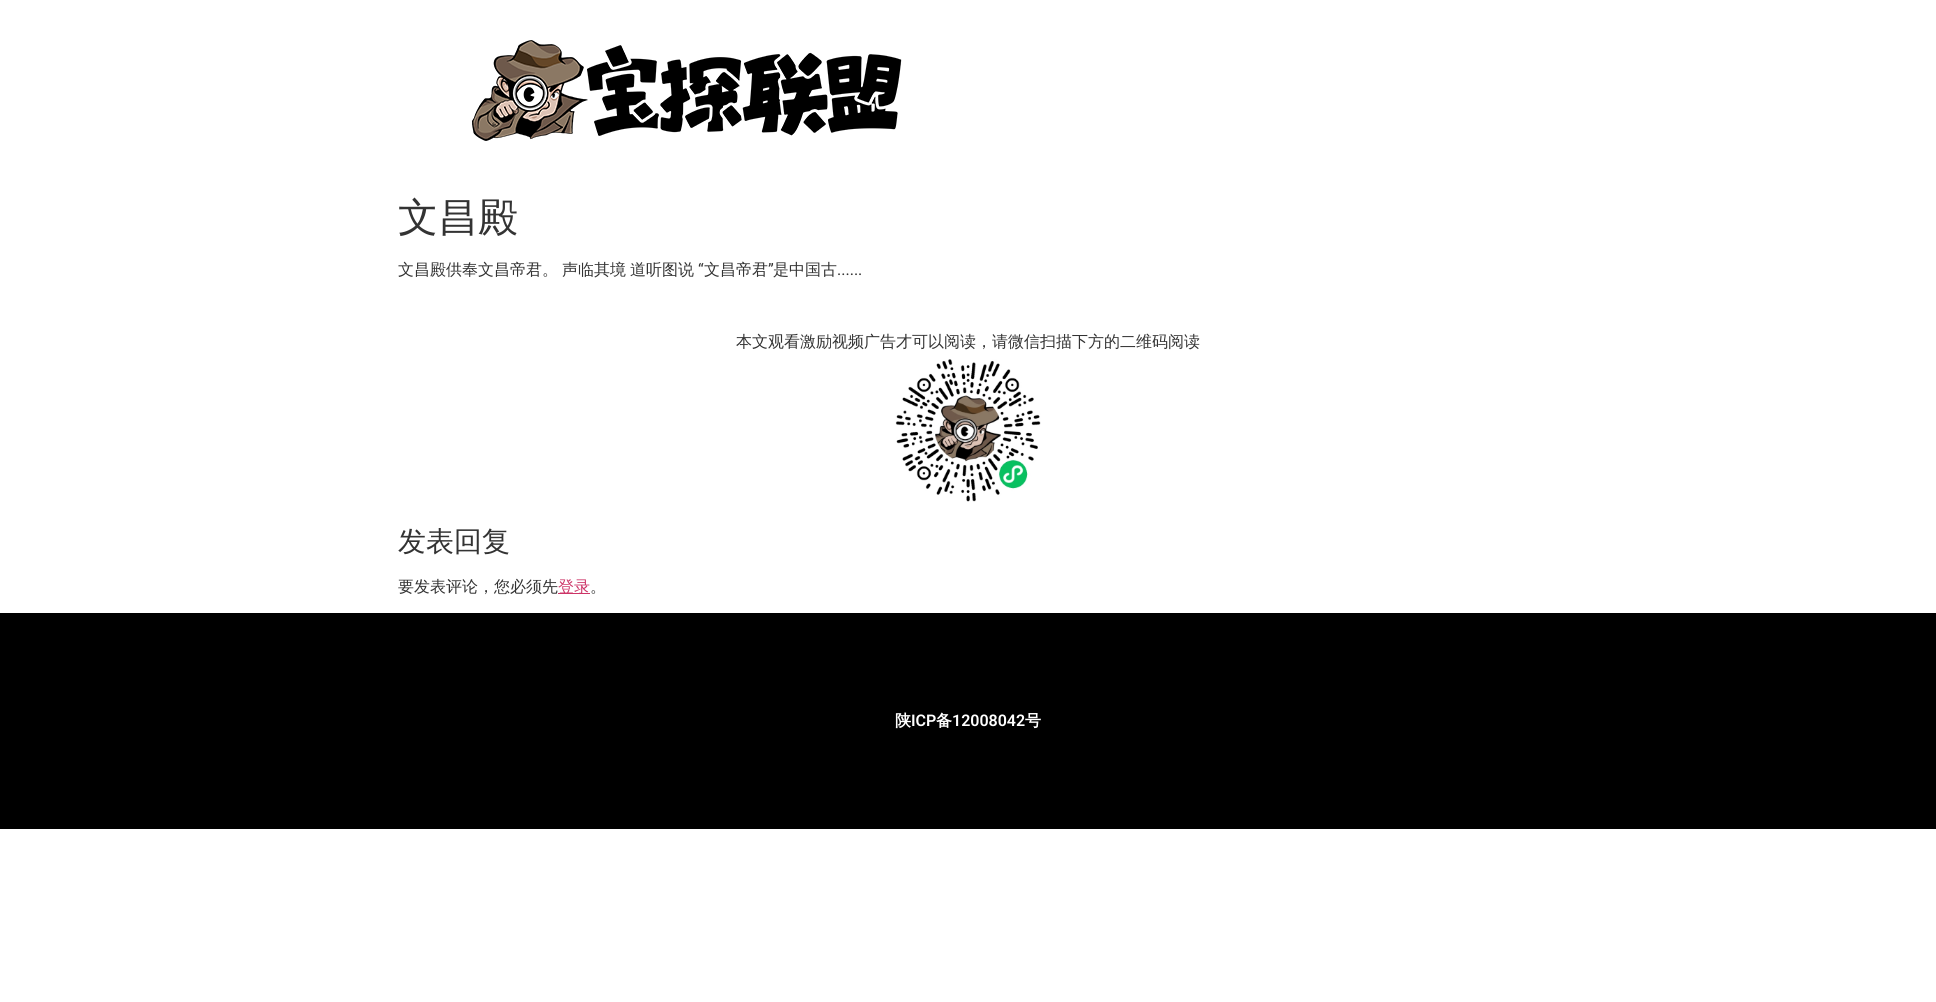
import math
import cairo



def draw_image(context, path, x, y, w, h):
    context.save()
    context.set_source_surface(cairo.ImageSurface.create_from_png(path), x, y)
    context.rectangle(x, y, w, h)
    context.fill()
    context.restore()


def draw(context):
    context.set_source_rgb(1, 1, 1)
    context.paint()
    draw_image(context, "images/1.png", 472, 40, 430, 101)
    draw_image(context, "images/2.png", 895, 359, 146, 143)
    context.set_source_rgb(204 / 255, 51 / 255, 102 / 255)
    context.rectangle(558, 593, 32, 1)
    context.fill()
    context.set_source_rgb(0, 0, 0)
    context.rectangle(0, 613, 1936, 216)
    context.fill()
    context.select_font_face("WenQuanYi Zen Hei Medium")
    context.set_font_size(40)
    context.set_source_rgb(51 / 255, 51 / 255, 51 / 255)
    context.move_to(398, 231)
    context.show_text("文昌殿")
    context.set_font_size(16)
    context.move_to(398, 275)
    context.show_text("文昌殿供奉文昌帝君。")
    context.move_to(562, 275)
    context.show_text("声临其境")
    context.move_to(630, 275)
    context.show_text("道听图说")
    context.select_font_face("Roboto")
    context.move_to(698, 275)
    context.show_text("“")
    context.select_font_face("WenQuanYi Zen Hei Medium")
    context.move_to(704, 275)
    context.show_text("文昌帝君")
    context.select_font_face("Roboto")
    context.move_to(768, 275)
    context.show_text("”")
    context.select_font_face("WenQuanYi Zen Hei Medium")
    context.move_to(773, 275)
    context.show_text("是中国古")
    context.select_font_face("Roboto")
    context.move_to(837, 275)
    context.show_text("......")
    context.select_font_face("WenQuanYi Zen Hei Medium")
    context.move_to(736, 347)
    context.show_text("本文观看激励视频广告才可以阅读，请微信扫描下方的二维码阅读")
    context.set_font_size(28)
    context.move_to(398, 551)
    context.show_text("发表回复")
    context.set_font_size(16)
    context.move_to(398, 592)
    context.show_text("要发表评论，您必须先")
    context.set_source_rgb(204 / 255, 51 / 255, 102 / 255)
    context.move_to(558, 592)
    context.show_text("登录")
    context.set_source_rgb(51 / 255, 51 / 255, 51 / 255)
    context.move_to(590, 592)
    context.show_text("。")
    context.select_font_face("WenQuanYi Zen Hei", cairo.FontSlant.NORMAL, cairo.FontWeight.BOLD)
    context.set_source_rgb(1, 1, 1)
    context.move_to(895, 726)
    context.show_text("陕")
    context.select_font_face("Roboto SemiBold")
    context.move_to(911, 726)
    context.show_text("ICP")
    context.select_font_face("WenQuanYi Zen Hei", cairo.FontSlant.NORMAL, cairo.FontWeight.BOLD)
    context.move_to(936, 726)
    context.show_text("备")
    context.select_font_face("Roboto SemiBold")
    context.move_to(952, 726)
    context.show_text("12008042")
    context.select_font_face("WenQuanYi Zen Hei", cairo.FontSlant.NORMAL, cairo.FontWeight.BOLD)
    context.move_to(1025, 726)
    context.show_text("号")


surface = cairo.ImageSurface(cairo.Format.RGB24, 1936, 1002)
context = cairo.Context(surface)
options = cairo.FontOptions()
options.set_hint_metrics(cairo.HintMetrics.OFF)
options.set_hint_style(cairo.HintStyle.NONE)
context.set_font_options(options)
context.set_miter_limit(4)
draw(context)
surface.write_to_png("out.png")
